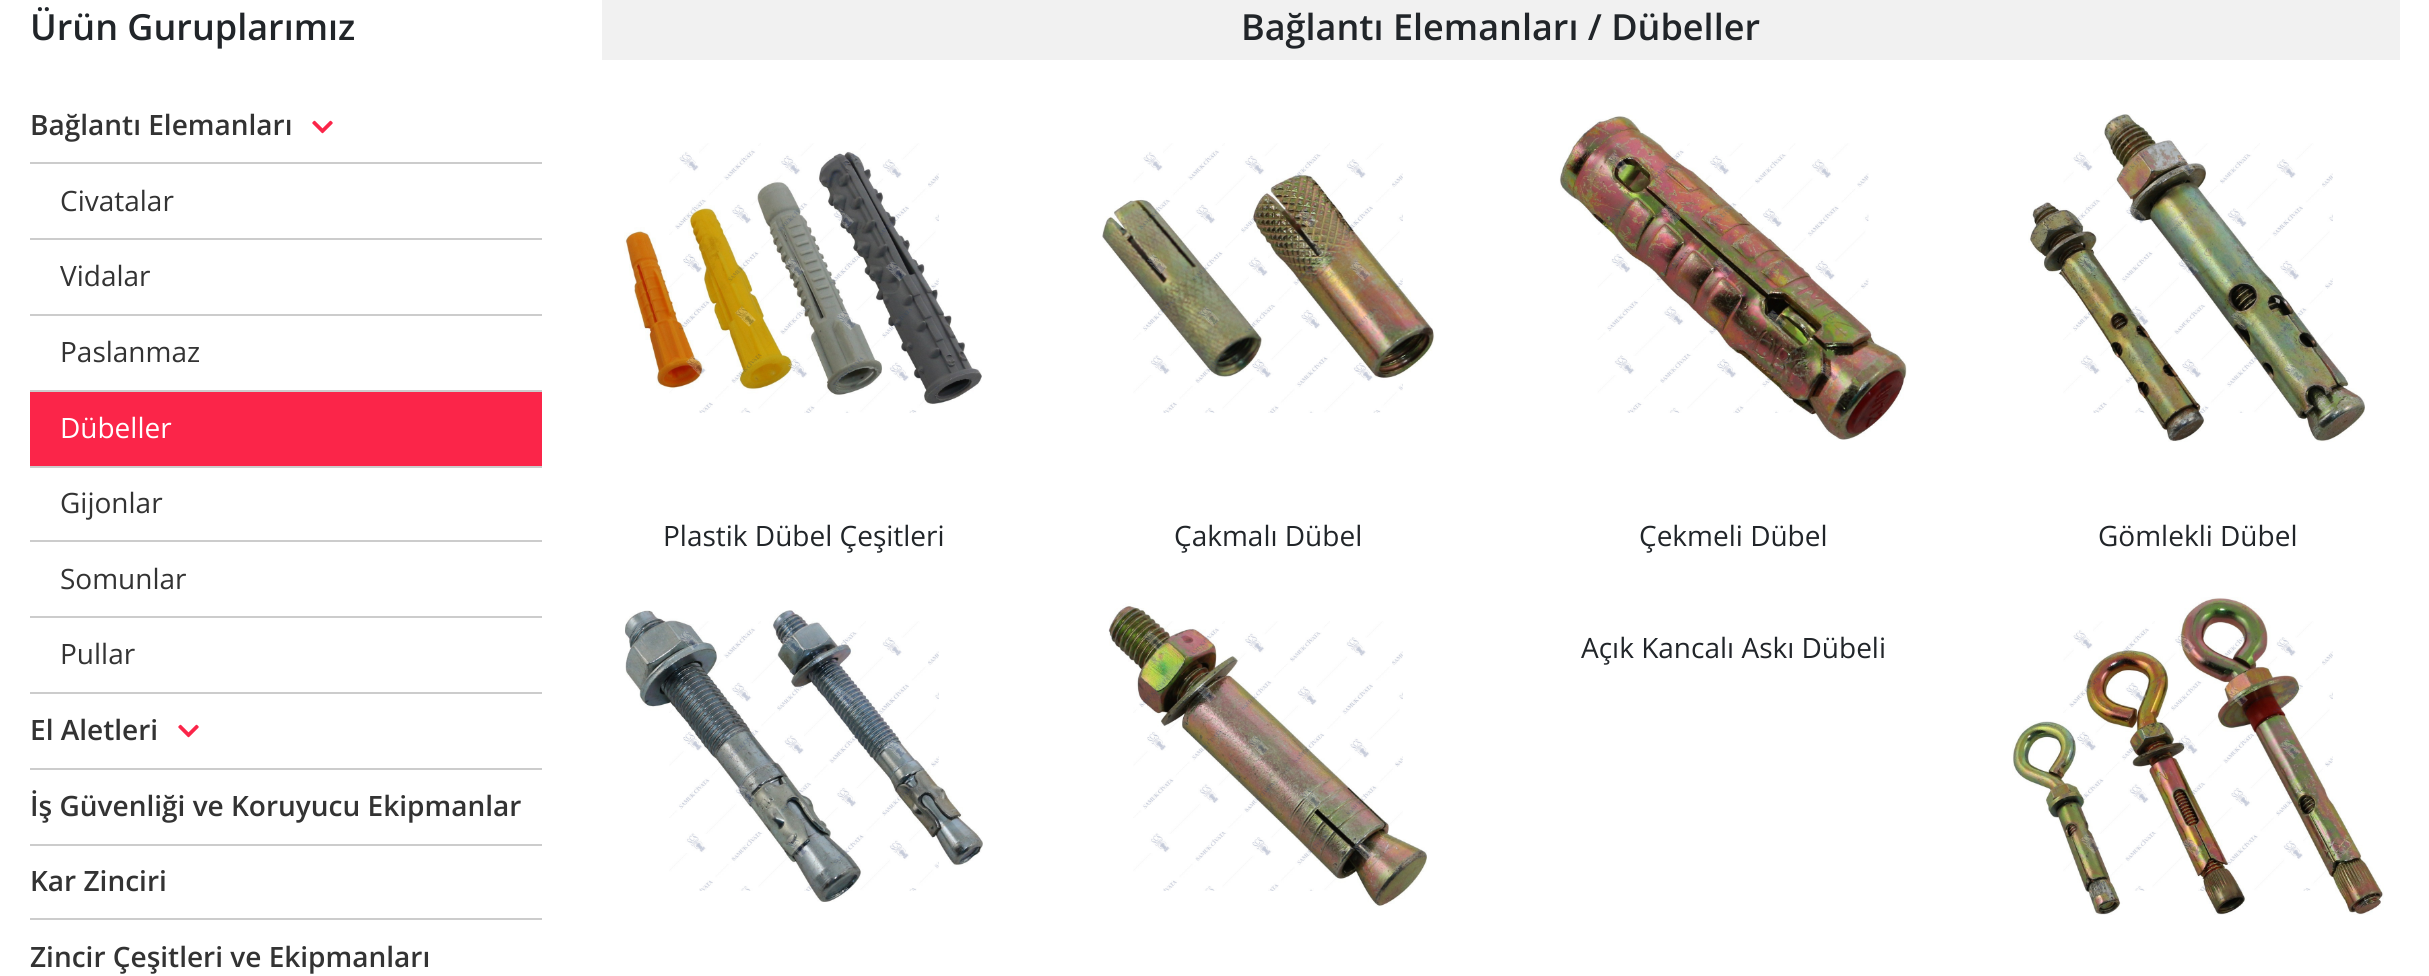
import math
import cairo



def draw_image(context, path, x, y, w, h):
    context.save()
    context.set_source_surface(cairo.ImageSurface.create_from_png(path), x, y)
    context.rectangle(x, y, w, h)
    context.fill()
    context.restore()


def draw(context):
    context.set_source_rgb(1, 1, 1)
    context.paint()
    context.set_source_rgb(204 / 255, 204 / 255, 204 / 255)
    context.rectangle(30, 162, 512, 2)
    context.fill()
    draw_image(context, "images/1.png", 312, 120, 21, 14)
    context.rectangle(30, 238, 512, 2)
    context.fill()
    context.rectangle(30, 314, 512, 2)
    context.fill()
    context.rectangle(30, 390, 512, 2)
    context.fill()
    context.rectangle(30, 466, 512, 2)
    context.fill()
    context.set_source_rgb(251 / 255, 37 / 255, 73 / 255)
    context.rectangle(30, 392, 512, 74)
    context.fill()
    context.set_source_rgb(204 / 255, 204 / 255, 204 / 255)
    context.rectangle(30, 540, 512, 2)
    context.fill()
    context.rectangle(30, 616, 512, 2)
    context.fill()
    context.rectangle(30, 692, 512, 2)
    context.fill()
    context.rectangle(30, 768, 512, 2)
    context.fill()
    draw_image(context, "images/1.png", 178, 724, 21, 14)
    context.rectangle(30, 844, 512, 2)
    context.fill()
    context.rectangle(30, 918, 512, 2)
    context.fill()
    context.set_source_rgb(241 / 255, 241 / 255, 241 / 255)
    context.rectangle(602, 0, 1798, 60)
    context.fill()
    draw_image(context, "images/2.png", 624, 143, 358, 270)
    draw_image(context, "images/3.png", 1102, 143, 333, 270)
    draw_image(context, "images/4.png", 1559, 115, 348, 325)
    draw_image(context, "images/5.png", 2028, 114, 337, 328)
    draw_image(context, "images/6.png", 625, 610, 358, 292)
    draw_image(context, "images/7.png", 1108, 603, 319, 304)
    draw_image(context, "images/8.png", 2012, 597, 372, 318)
    context.select_font_face("Open Sans SemiBold")
    context.set_font_size(36)
    context.set_source_rgb(33 / 255, 37 / 255, 41 / 255)
    context.move_to(30, 40)
    context.show_text("Ürün Guruplarımız")
    context.set_font_size(28)
    context.set_source_rgb(51 / 255, 51 / 255, 51 / 255)
    context.move_to(30, 135)
    context.show_text("Bağlantı Elemanları")
    context.select_font_face("Open Sans")
    context.move_to(60, 211)
    context.show_text("Civatalar")
    context.move_to(60, 286)
    context.show_text("Vidalar")
    context.move_to(60, 362)
    context.show_text("Paslanmaz")
    context.set_source_rgb(1, 1, 1)
    context.move_to(60, 438)
    context.show_text("Dübeller")
    context.set_source_rgb(51 / 255, 51 / 255, 51 / 255)
    context.move_to(60, 513)
    context.show_text("Gijonlar")
    context.move_to(60, 589)
    context.show_text("Somunlar")
    context.move_to(60, 664)
    context.show_text("Pullar")
    context.select_font_face("Open Sans SemiBold")
    context.move_to(30, 740)
    context.show_text("El Aletleri")
    context.move_to(30, 816)
    context.show_text("İş Güvenliği ve Koruyucu Ekipmanlar")
    context.move_to(30, 891)
    context.show_text("Kar Zinciri")
    context.move_to(30, 967)
    context.show_text("Zincir Çeşitleri ve Ekipmanları")
    context.set_font_size(36)
    context.set_source_rgb(33 / 255, 37 / 255, 41 / 255)
    context.move_to(1241, 40)
    context.show_text("Bağlantı Elemanları / Dübeller")
    context.select_font_face("Open Sans")
    context.set_font_size(28)
    context.move_to(663, 546)
    context.show_text("Plastik Dübel Çeşitleri")
    context.move_to(1174, 546)
    context.show_text("Çakmalı Dübel")
    context.move_to(1639, 546)
    context.show_text("Çekmeli Dübel")
    context.move_to(2098, 546)
    context.show_text("Gömlekli Dübel")
    context.move_to(1581, 658)
    context.show_text("Açık Kancalı Askı Dübeli")


surface = cairo.ImageSurface(cairo.Format.RGB24, 2429, 976)
context = cairo.Context(surface)
options = cairo.FontOptions()
options.set_hint_metrics(cairo.HintMetrics.OFF)
options.set_hint_style(cairo.HintStyle.NONE)
context.set_font_options(options)
context.set_miter_limit(4)
draw(context)
surface.write_to_png("out.png")
